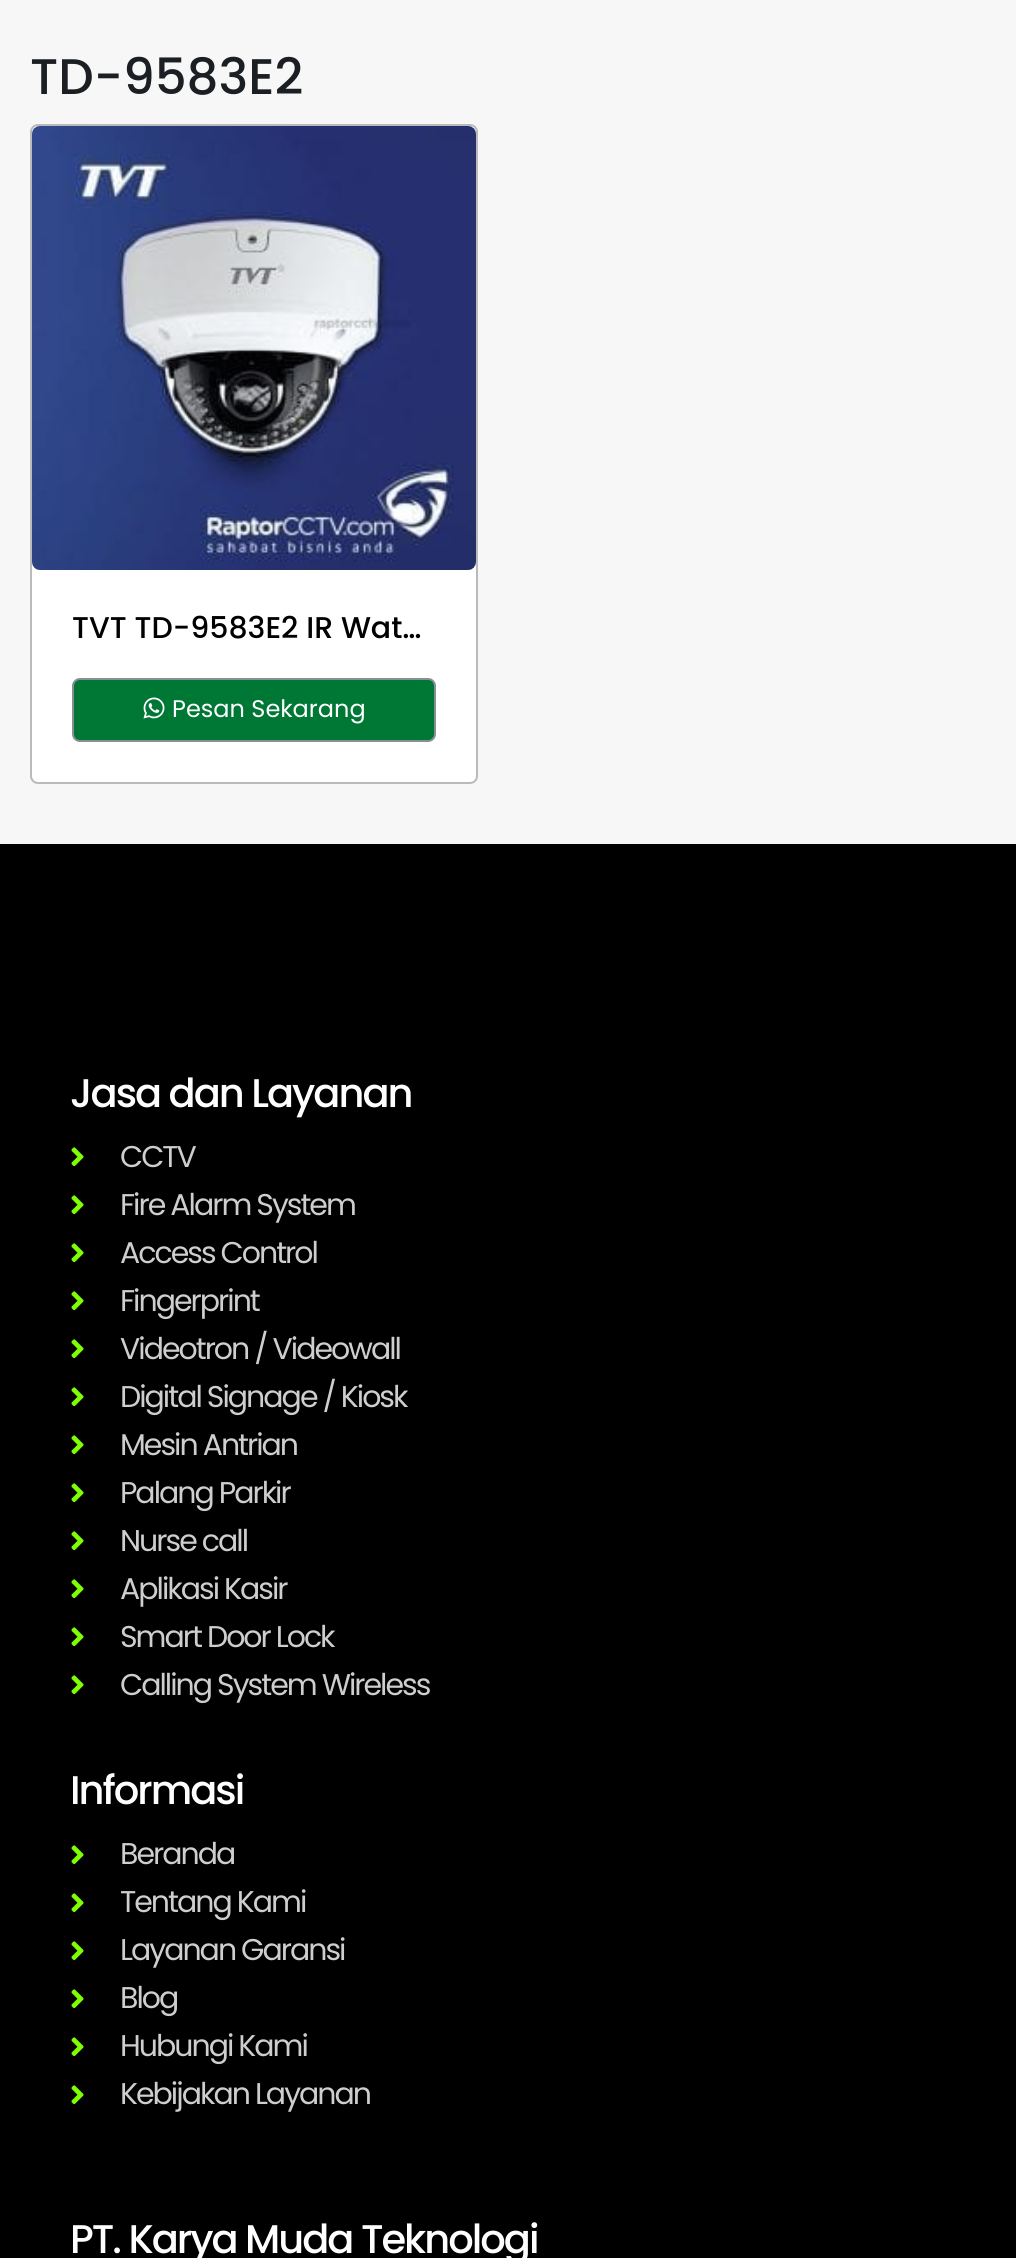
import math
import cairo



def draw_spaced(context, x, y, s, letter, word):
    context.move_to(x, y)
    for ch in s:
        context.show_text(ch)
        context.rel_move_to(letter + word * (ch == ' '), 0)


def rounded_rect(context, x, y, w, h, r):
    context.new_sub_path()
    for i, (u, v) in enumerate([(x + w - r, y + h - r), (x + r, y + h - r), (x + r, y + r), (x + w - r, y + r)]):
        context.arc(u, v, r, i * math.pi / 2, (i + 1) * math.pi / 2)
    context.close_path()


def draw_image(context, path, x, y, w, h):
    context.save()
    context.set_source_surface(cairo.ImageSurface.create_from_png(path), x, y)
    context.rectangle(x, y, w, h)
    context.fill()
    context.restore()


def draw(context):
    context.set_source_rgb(247 / 255, 247 / 255, 247 / 255)
    context.paint()
    context.set_source_rgb(1, 1, 1)
    rounded_rect(context, 31, 125, 446, 658, 7)
    context.fill_preserve()
    context.set_source_rgb(186 / 255, 186 / 255, 186 / 255)
    context.stroke()
    draw_image(context, "images/1.png", 32, 126, 444, 444)
    context.set_source_rgb(0, 120 / 255, 53 / 255)
    rounded_rect(context, 73, 679, 362, 62, 7)
    context.fill_preserve()
    context.set_source_rgb(134 / 255, 142 / 255, 150 / 255)
    context.stroke()
    draw_image(context, "images/2.png", 143, 697, 22, 22)
    context.set_source_rgb(0, 0, 0)
    context.rectangle(0, 844, 1016, 1414)
    context.fill()
    draw_image(context, "images/3.png", 71, 1147, 13, 20)
    draw_image(context, "images/3.png", 71, 1195, 13, 20)
    draw_image(context, "images/3.png", 71, 1243, 13, 20)
    draw_image(context, "images/3.png", 71, 1291, 13, 20)
    draw_image(context, "images/3.png", 71, 1339, 13, 20)
    draw_image(context, "images/3.png", 71, 1387, 13, 20)
    draw_image(context, "images/3.png", 71, 1435, 13, 20)
    draw_image(context, "images/3.png", 71, 1483, 13, 20)
    draw_image(context, "images/3.png", 71, 1531, 13, 20)
    draw_image(context, "images/3.png", 71, 1579, 13, 20)
    draw_image(context, "images/3.png", 71, 1627, 13, 20)
    draw_image(context, "images/3.png", 71, 1675, 13, 20)
    draw_image(context, "images/3.png", 71, 1845, 13, 20)
    draw_image(context, "images/3.png", 71, 1893, 13, 20)
    draw_image(context, "images/3.png", 71, 1941, 13, 20)
    draw_image(context, "images/3.png", 71, 1989, 13, 20)
    draw_image(context, "images/3.png", 71, 2037, 13, 20)
    draw_image(context, "images/3.png", 71, 2085, 13, 20)
    context.select_font_face("Poppins Medium")
    context.set_font_size(50)
    context.set_source_rgb(27 / 255, 30 / 255, 35 / 255)
    context.move_to(30, 94)
    context.show_text("TD-9583E2")
    context.set_font_size(30)
    context.set_source_rgb(0, 0, 0)
    context.move_to(72, 638)
    context.show_text("TVT TD-9583E2 IR Wat…")
    context.select_font_face("Poppins")
    context.set_font_size(24)
    context.set_source_rgb(1, 1, 1)
    context.move_to(172, 717)
    context.show_text("Pesan Sekarang")
    context.select_font_face("Poppins Medium")
    context.set_font_size(40)
    draw_spaced(context, 70, 1107, "Jasa dan Layanan", -2, 0)
    context.select_font_face("Poppins")
    context.set_font_size(30)
    context.set_source_rgb(207 / 255, 206 / 255, 206 / 255)
    draw_spaced(context, 120, 1167, "CCTV", -2, 0)
    draw_spaced(context, 120, 1215, "Fire Alarm System", -2, 0)
    draw_spaced(context, 120, 1263, "Access Control", -2, 0)
    draw_spaced(context, 120, 1311, "Fingerprint", -2, 0)
    draw_spaced(context, 120, 1359, "Videotron / Videowall", -2, 0)
    draw_spaced(context, 120, 1407, "Digital Signage / Kiosk", -2, 0)
    draw_spaced(context, 120, 1455, "Mesin Antrian", -2, 0)
    draw_spaced(context, 120, 1503, "Palang Parkir", -2, 0)
    draw_spaced(context, 120, 1551, "Nurse call", -2, 0)
    draw_spaced(context, 120, 1599, "Aplikasi Kasir", -2, 0)
    draw_spaced(context, 120, 1647, "Smart Door Lock", -2, 0)
    draw_spaced(context, 120, 1695, "Calling System Wireless", -2, 0)
    context.select_font_face("Poppins Medium")
    context.set_font_size(40)
    context.set_source_rgb(1, 1, 1)
    draw_spaced(context, 70, 1804, "Informasi", -2, 0)
    context.select_font_face("Poppins")
    context.set_font_size(30)
    context.set_source_rgb(207 / 255, 206 / 255, 206 / 255)
    draw_spaced(context, 120, 1864, "Beranda", -2, 0)
    draw_spaced(context, 120, 1912, "Tentang Kami", -2, 0)
    draw_spaced(context, 120, 1960, "Layanan Garansi", -2, 0)
    draw_spaced(context, 120, 2008, "Blog", -2, 0)
    draw_spaced(context, 120, 2056, "Hubungi Kami", -2, 0)
    draw_spaced(context, 120, 2104, "Kebijakan Layanan", -2, 0)
    context.select_font_face("Poppins Medium")
    context.set_font_size(40)
    context.set_source_rgb(1, 1, 1)
    draw_spaced(context, 70, 2253, "PT. Karya Muda Teknologi", -2, 0)


surface = cairo.ImageSurface(cairo.Format.RGB24, 1016, 2258)
context = cairo.Context(surface)
options = cairo.FontOptions()
options.set_hint_metrics(cairo.HintMetrics.OFF)
options.set_hint_style(cairo.HintStyle.NONE)
context.set_font_options(options)
context.set_miter_limit(4)
draw(context)
surface.write_to_png("out.png")
